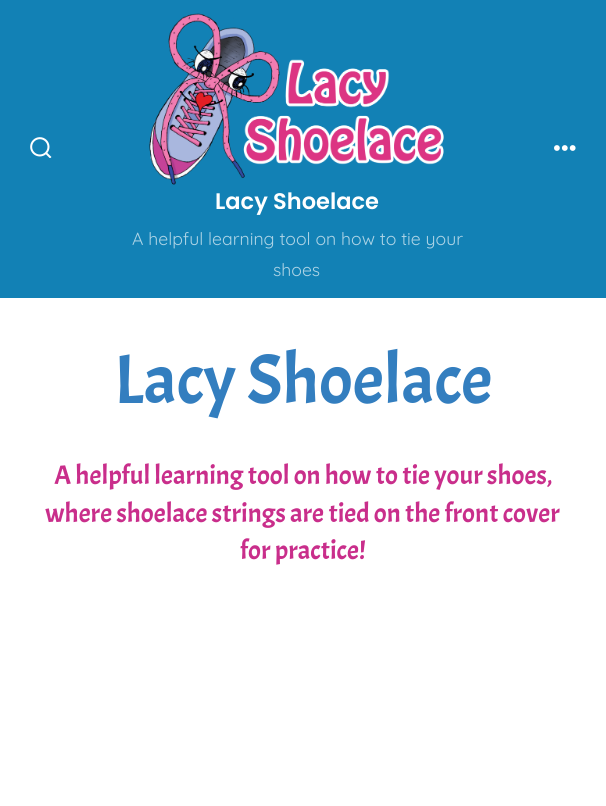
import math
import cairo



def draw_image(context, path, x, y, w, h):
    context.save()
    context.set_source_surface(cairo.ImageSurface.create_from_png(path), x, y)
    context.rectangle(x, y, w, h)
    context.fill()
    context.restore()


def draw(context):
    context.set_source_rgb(1, 1, 1)
    context.paint()
    context.set_source_rgb(18 / 255, 129 / 255, 181 / 255)
    context.rectangle(0, 0, 606, 298)
    context.fill()
    draw_image(context, "images/1.png", 30, 137, 22, 21)
    draw_image(context, "images/2.png", 554, 145, 22, 6)
    draw_image(context, "images/3.png", 149, 13, 295, 172)
    context.select_font_face("Poppins SemiBold")
    context.set_font_size(22.5)
    context.set_source_rgb(1, 1, 1)
    context.move_to(215, 209)
    context.show_text("Lacy Shoelace")
    context.select_font_face("Quicksand")
    context.set_font_size(17.6)
    context.set_source_rgb(172 / 255, 211 / 255, 229 / 255)
    context.move_to(132, 245)
    context.show_text("A helpful learning tool on how to tie your")
    context.move_to(273, 276)
    context.show_text("shoes")
    context.select_font_face("Acme")
    context.set_font_size(70)
    context.set_source_rgb(51 / 255, 126 / 255, 191 / 255)
    context.move_to(114, 403)
    context.show_text("Lacy Shoelace")
    context.set_font_size(26.8)
    context.set_source_rgb(201 / 255, 46 / 255, 139 / 255)
    context.move_to(54, 484)
    context.show_text("A helpful learning tool on how to tie your shoes,")
    context.move_to(45, 522)
    context.show_text("where shoelace strings are tied on the front cover")
    context.move_to(240, 559)
    context.show_text("for practice!")


surface = cairo.ImageSurface(cairo.Format.RGB24, 606, 806)
context = cairo.Context(surface)
options = cairo.FontOptions()
options.set_hint_metrics(cairo.HintMetrics.OFF)
options.set_hint_style(cairo.HintStyle.NONE)
context.set_font_options(options)
context.set_miter_limit(4)
draw(context)
surface.write_to_png("out.png")
